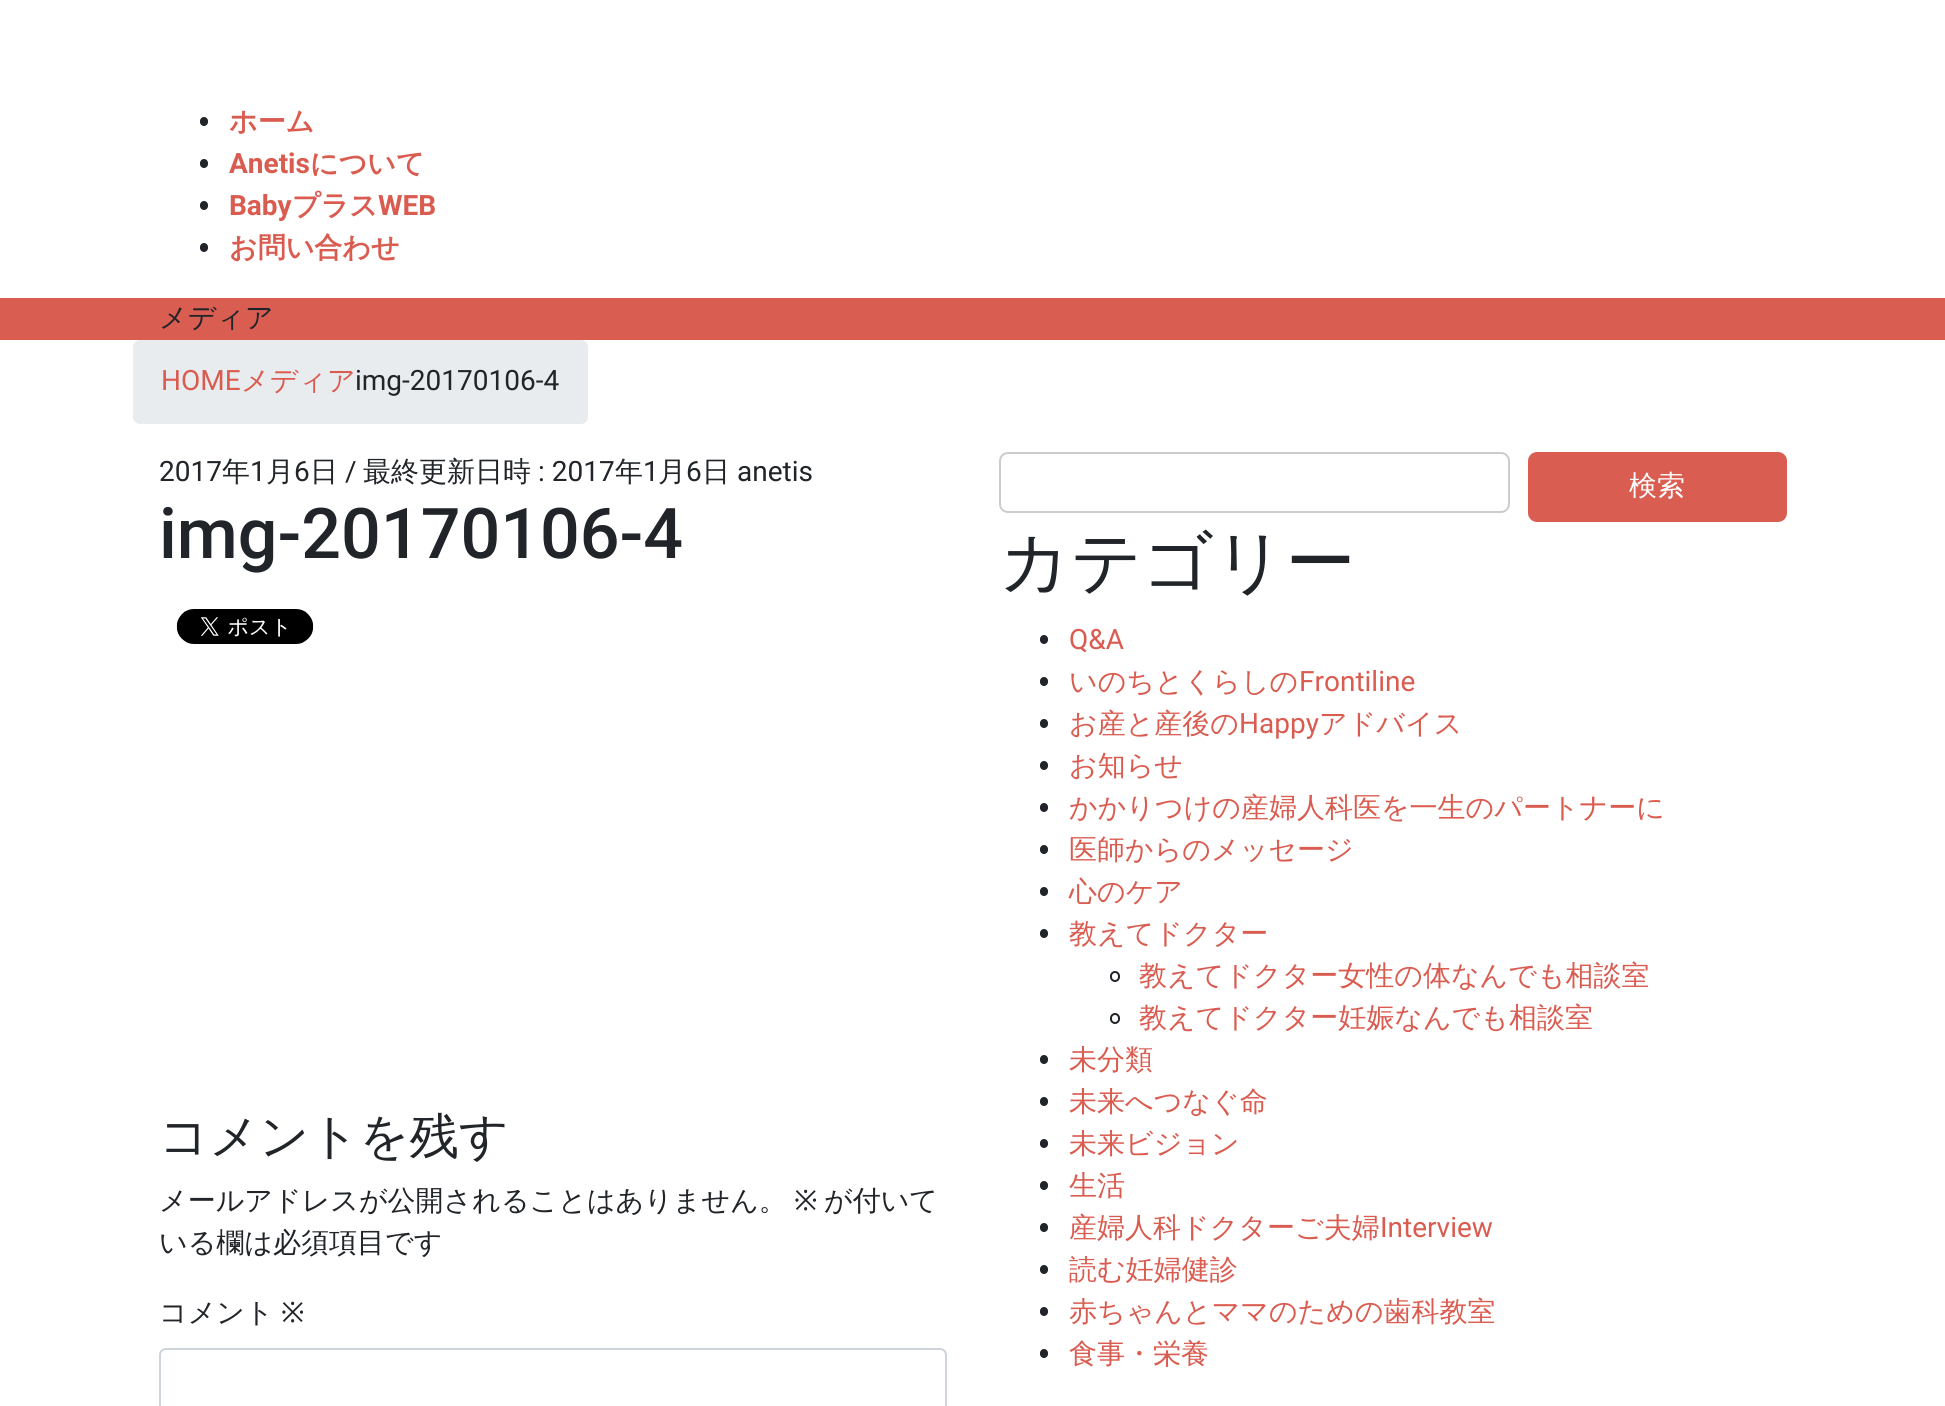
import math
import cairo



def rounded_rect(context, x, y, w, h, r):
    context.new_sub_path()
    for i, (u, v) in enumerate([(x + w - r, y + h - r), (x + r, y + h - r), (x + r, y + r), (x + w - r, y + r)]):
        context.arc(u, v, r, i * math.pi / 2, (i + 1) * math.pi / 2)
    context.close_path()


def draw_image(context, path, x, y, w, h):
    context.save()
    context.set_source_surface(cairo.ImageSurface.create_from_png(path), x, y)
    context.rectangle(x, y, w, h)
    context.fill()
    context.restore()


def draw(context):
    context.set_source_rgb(1, 1, 1)
    context.paint()
    context.set_source_rgb(33 / 255, 37 / 255, 41 / 255)
    rounded_rect(context, 200, 117, 8, 9, 4)
    context.fill()
    rounded_rect(context, 200, 159, 8, 9, 4)
    context.fill()
    rounded_rect(context, 200, 201, 8, 9, 4)
    context.fill()
    rounded_rect(context, 200, 243, 8, 9, 4)
    context.fill()
    context.set_source_rgb(218 / 255, 93 / 255, 82 / 255)
    context.rectangle(0, 298, 1945, 42)
    context.fill()
    context.set_source_rgb(233 / 255, 236 / 255, 239 / 255)
    rounded_rect(context, 133, 340, 455, 84, 7)
    context.fill()
    draw_image(context, "images/1.png", 176, 609, 138, 35)
    rounded_rect(context, 160, 1349, 786, 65, 6)
    context.set_source_rgb(206 / 255, 212 / 255, 218 / 255)
    context.stroke()
    rounded_rect(context, 1000, 453, 509, 59, 8)
    context.set_source_rgb(204 / 255, 204 / 255, 204 / 255)
    context.stroke()
    context.set_source_rgb(218 / 255, 93 / 255, 82 / 255)
    rounded_rect(context, 1528, 452, 259, 70, 9)
    context.fill()
    context.set_source_rgb(33 / 255, 37 / 255, 41 / 255)
    rounded_rect(context, 1040, 635, 8, 9, 4)
    context.fill()
    rounded_rect(context, 1040, 677, 8, 9, 4)
    context.fill()
    rounded_rect(context, 1040, 719, 8, 9, 4)
    context.fill()
    rounded_rect(context, 1040, 761, 8, 9, 4)
    context.fill()
    rounded_rect(context, 1040, 803, 8, 9, 4)
    context.fill()
    rounded_rect(context, 1040, 845, 8, 9, 4)
    context.fill()
    rounded_rect(context, 1040, 887, 8, 9, 4)
    context.fill()
    rounded_rect(context, 1040, 929, 8, 9, 4)
    context.fill()
    rounded_rect(context, 1111, 972, 8, 9, 4)
    context.stroke()
    rounded_rect(context, 1111, 1014, 8, 9, 4)
    context.stroke()
    rounded_rect(context, 1040, 1055, 8, 9, 4)
    context.fill()
    rounded_rect(context, 1040, 1097, 8, 9, 4)
    context.fill()
    rounded_rect(context, 1040, 1139, 8, 9, 4)
    context.fill()
    rounded_rect(context, 1040, 1181, 8, 9, 4)
    context.fill()
    rounded_rect(context, 1040, 1223, 8, 9, 4)
    context.fill()
    rounded_rect(context, 1040, 1265, 8, 9, 4)
    context.fill()
    rounded_rect(context, 1040, 1307, 8, 9, 4)
    context.fill()
    rounded_rect(context, 1040, 1349, 8, 9, 4)
    context.fill()
    context.select_font_face("WenQuanYi Zen Hei", cairo.FontSlant.NORMAL, cairo.FontWeight.BOLD)
    context.set_font_size(28)
    context.set_source_rgb(218 / 255, 92 / 255, 80 / 255)
    context.move_to(229, 131)
    context.show_text("ホーム")
    context.select_font_face("Roboto", cairo.FontSlant.NORMAL, cairo.FontWeight.BOLD)
    context.move_to(229, 173)
    context.show_text("Anetis")
    context.select_font_face("WenQuanYi Zen Hei", cairo.FontSlant.NORMAL, cairo.FontWeight.BOLD)
    context.move_to(310, 173)
    context.show_text("について")
    context.select_font_face("Roboto", cairo.FontSlant.NORMAL, cairo.FontWeight.BOLD)
    context.move_to(229, 215)
    context.show_text("Baby")
    context.select_font_face("WenQuanYi Zen Hei", cairo.FontSlant.NORMAL, cairo.FontWeight.BOLD)
    context.move_to(292, 215)
    context.show_text("プラス")
    context.select_font_face("Roboto", cairo.FontSlant.NORMAL, cairo.FontWeight.BOLD)
    context.move_to(378, 215)
    context.show_text("WEB")
    context.select_font_face("WenQuanYi Zen Hei", cairo.FontSlant.NORMAL, cairo.FontWeight.BOLD)
    context.move_to(229, 257)
    context.show_text("お問い合わせ")
    context.select_font_face("WenQuanYi Zen Hei Medium")
    context.set_source_rgb(33 / 255, 37 / 255, 41 / 255)
    context.move_to(159, 327)
    context.show_text("メディア")
    context.select_font_face("Roboto")
    context.set_source_rgb(218 / 255, 92 / 255, 80 / 255)
    context.move_to(161, 390)
    context.show_text("HOME")
    context.select_font_face("WenQuanYi Zen Hei Medium")
    context.move_to(241, 390)
    context.show_text("メディア")
    context.select_font_face("Roboto")
    context.set_source_rgb(33 / 255, 37 / 255, 41 / 255)
    context.move_to(355, 390)
    context.show_text("img-20170106-4")
    context.move_to(159, 481)
    context.show_text("2017")
    context.select_font_face("WenQuanYi Zen Hei Medium")
    context.move_to(222, 481)
    context.show_text("年")
    context.select_font_face("Roboto")
    context.move_to(250, 481)
    context.show_text("1")
    context.select_font_face("WenQuanYi Zen Hei Medium")
    context.move_to(266, 481)
    context.show_text("月")
    context.select_font_face("Roboto")
    context.move_to(294, 481)
    context.show_text("6")
    context.select_font_face("WenQuanYi Zen Hei Medium")
    context.move_to(310, 481)
    context.show_text("日")
    context.select_font_face("Roboto")
    context.move_to(345, 481)
    context.show_text("/")
    context.select_font_face("WenQuanYi Zen Hei Medium")
    context.move_to(363, 481)
    context.show_text("最終更新日時")
    context.select_font_face("Roboto")
    context.move_to(538, 481)
    context.show_text(": 2017")
    context.select_font_face("WenQuanYi Zen Hei Medium")
    context.move_to(615, 481)
    context.show_text("年")
    context.select_font_face("Roboto")
    context.move_to(643, 481)
    context.show_text("1")
    context.select_font_face("WenQuanYi Zen Hei Medium")
    context.move_to(658, 481)
    context.show_text("月")
    context.select_font_face("Roboto")
    context.move_to(686, 481)
    context.show_text("6")
    context.select_font_face("WenQuanYi Zen Hei Medium")
    context.move_to(702, 481)
    context.show_text("日")
    context.select_font_face("Roboto")
    context.move_to(737, 481)
    context.show_text("anetis")
    context.select_font_face("Roboto Medium")
    context.set_font_size(70)
    context.move_to(159, 558)
    context.show_text("img-20170106-4")
    context.select_font_face("WenQuanYi Zen Hei Medium")
    context.set_font_size(49)
    context.move_to(159, 1153)
    context.show_text("コメントを残す")
    context.set_font_size(28)
    context.move_to(159, 1210)
    context.show_text("メールアドレスが公開されることはありません。")
    context.select_font_face("Noto Sans")
    context.move_to(794, 1210)
    context.show_text("※")
    context.select_font_face("WenQuanYi Zen Hei Medium")
    context.move_to(824, 1210)
    context.show_text("が付いて")
    context.move_to(159, 1252)
    context.show_text("いる欄は必須項目です")
    context.move_to(159, 1322)
    context.show_text("コメント")
    context.select_font_face("Noto Sans")
    context.move_to(281, 1322)
    context.show_text("※")
    context.select_font_face("WenQuanYi Zen Hei Medium")
    context.set_source_rgb(1, 1, 1)
    context.move_to(1629, 495)
    context.show_text("検索")
    context.set_font_size(70)
    context.set_source_rgb(33 / 255, 37 / 255, 41 / 255)
    context.move_to(999, 586)
    context.show_text("カテゴリー")
    context.select_font_face("Roboto")
    context.set_font_size(28)
    context.set_source_rgb(218 / 255, 92 / 255, 80 / 255)
    context.move_to(1069, 649)
    context.show_text("Q&A")
    context.select_font_face("WenQuanYi Zen Hei Medium")
    context.move_to(1069, 691)
    context.show_text("いのちとくらしの")
    context.select_font_face("Roboto")
    context.move_to(1299, 691)
    context.show_text("Frontiline")
    context.select_font_face("WenQuanYi Zen Hei Medium")
    context.move_to(1069, 733)
    context.show_text("お産と産後の")
    context.select_font_face("Roboto")
    context.move_to(1239, 733)
    context.show_text("Happy")
    context.select_font_face("WenQuanYi Zen Hei Medium")
    context.move_to(1319, 733)
    context.show_text("アドバイス")
    context.move_to(1069, 775)
    context.show_text("お知らせ")
    context.move_to(1069, 817)
    context.show_text("かかりつけの産婦人科医を一生のパートナーに")
    context.move_to(1069, 859)
    context.show_text("医師からのメッセージ")
    context.move_to(1069, 901)
    context.show_text("心のケア")
    context.move_to(1069, 943)
    context.show_text("教えてドクター")
    context.move_to(1139, 985)
    context.show_text("教えてドクター女性の体なんでも相談室")
    context.move_to(1139, 1027)
    context.show_text("教えてドクター妊娠なんでも相談室")
    context.move_to(1069, 1069)
    context.show_text("未分類")
    context.move_to(1069, 1111)
    context.show_text("未来へつなぐ命")
    context.move_to(1069, 1153)
    context.show_text("未来ビジョン")
    context.move_to(1069, 1195)
    context.show_text("生活")
    context.move_to(1069, 1237)
    context.show_text("産婦人科ドクターご夫婦")
    context.select_font_face("Roboto")
    context.move_to(1380, 1237)
    context.show_text("Interview")
    context.select_font_face("WenQuanYi Zen Hei Medium")
    context.move_to(1069, 1279)
    context.show_text("読む妊婦健診")
    context.move_to(1069, 1321)
    context.show_text("赤ちゃんとママのための歯科教室")
    context.move_to(1069, 1363)
    context.show_text("食事・栄養")


surface = cairo.ImageSurface(cairo.Format.RGB24, 1945, 1406)
context = cairo.Context(surface)
options = cairo.FontOptions()
options.set_hint_metrics(cairo.HintMetrics.OFF)
options.set_hint_style(cairo.HintStyle.NONE)
context.set_font_options(options)
context.set_miter_limit(4)
draw(context)
surface.write_to_png("out.png")
